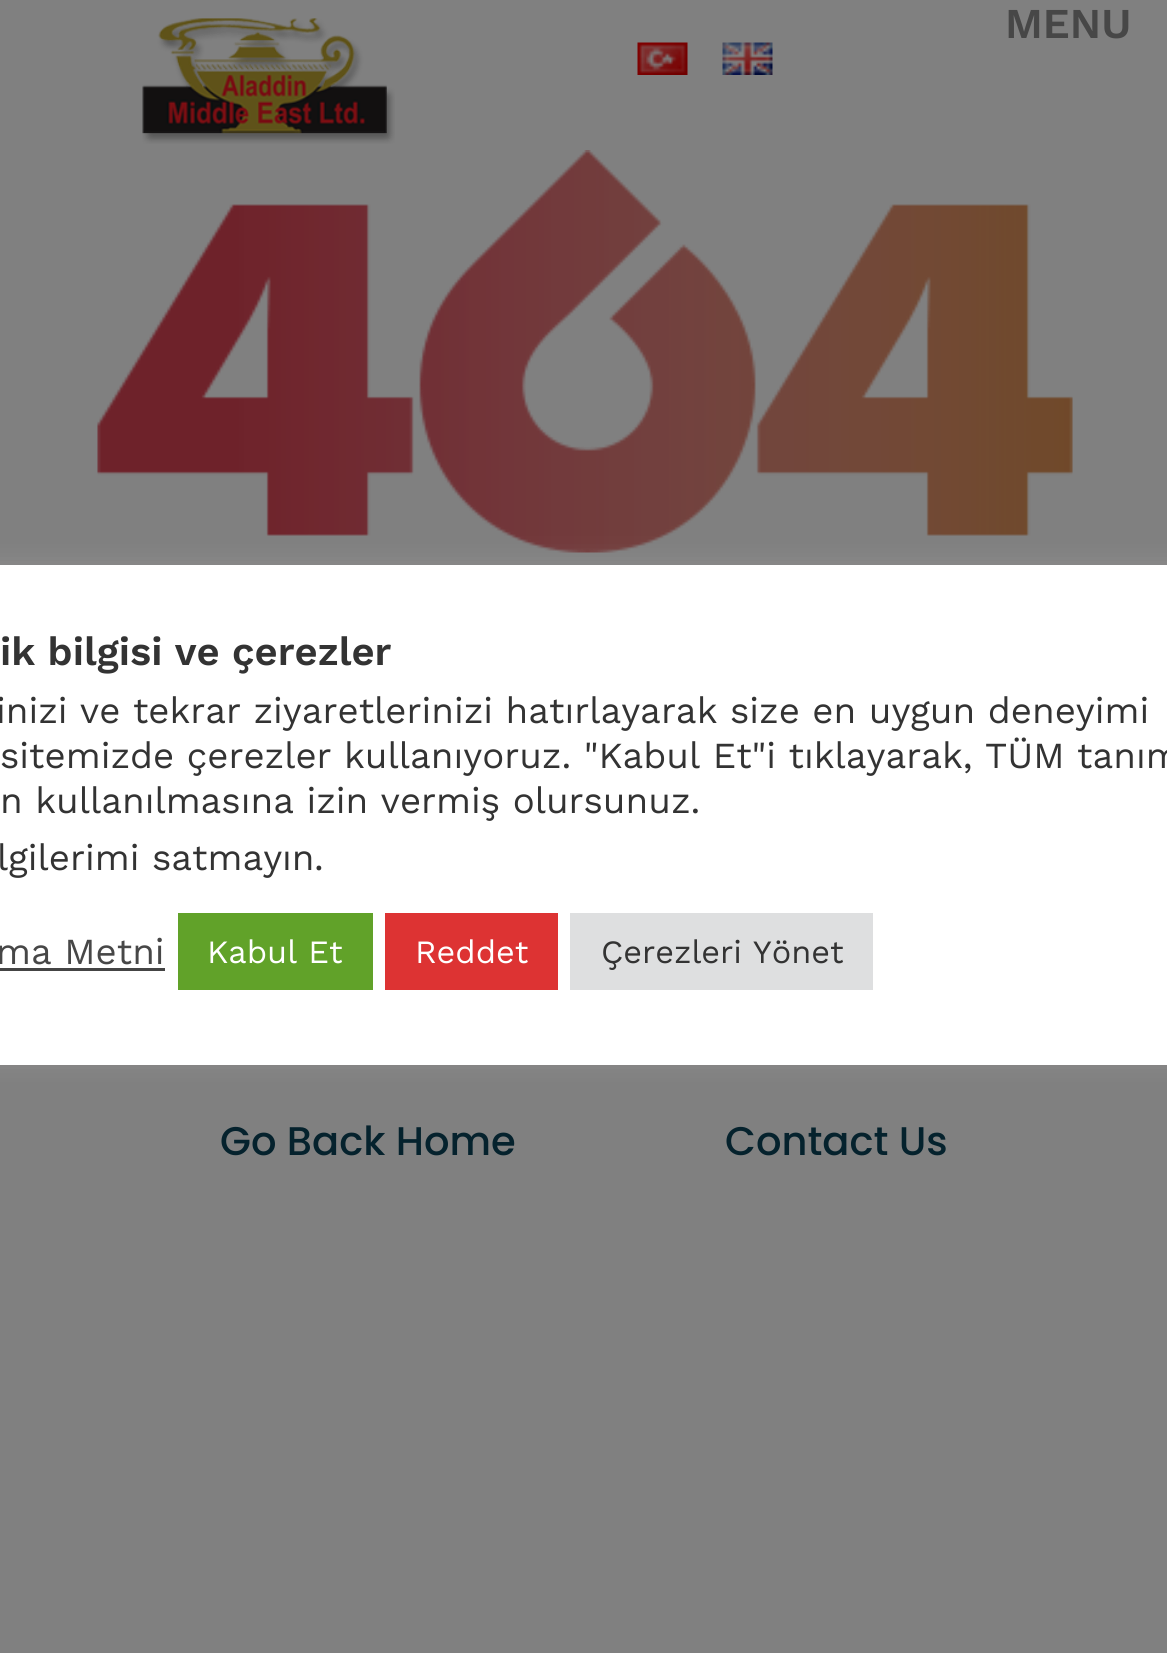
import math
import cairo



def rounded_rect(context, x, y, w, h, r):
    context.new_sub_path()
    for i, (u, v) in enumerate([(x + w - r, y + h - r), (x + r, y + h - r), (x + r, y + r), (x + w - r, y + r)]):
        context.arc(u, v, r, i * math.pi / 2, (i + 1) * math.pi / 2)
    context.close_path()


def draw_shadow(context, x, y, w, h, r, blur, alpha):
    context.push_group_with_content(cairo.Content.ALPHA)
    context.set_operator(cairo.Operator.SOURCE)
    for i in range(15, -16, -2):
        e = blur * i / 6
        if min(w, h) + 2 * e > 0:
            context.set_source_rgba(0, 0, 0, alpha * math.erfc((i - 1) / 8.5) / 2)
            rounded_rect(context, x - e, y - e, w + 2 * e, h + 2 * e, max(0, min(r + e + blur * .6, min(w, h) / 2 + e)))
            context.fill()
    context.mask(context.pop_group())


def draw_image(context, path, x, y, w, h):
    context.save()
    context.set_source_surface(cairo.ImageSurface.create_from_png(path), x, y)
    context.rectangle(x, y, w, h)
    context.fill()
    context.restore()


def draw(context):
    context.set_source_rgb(128 / 255, 128 / 255, 128 / 255)
    context.paint()
    draw_image(context, "images/1.png", 142, 18, 253, 126)
    draw_image(context, "images/2.png", 637, 42, 51, 33)
    draw_image(context, "images/3.png", 722, 42, 51, 33)
    draw_image(context, "images/4.png", 97, 150, 976, 403)
    context.set_source_rgb(172 / 255, 171 / 255, 171 / 255)
    draw_shadow(context, -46, 563, 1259, 500, 8, 12.5, 0.3)
    context.set_source_rgb(1, 1, 1)
    context.rectangle(0, 565, 1167, 500)
    context.fill()
    context.set_source_rgb(68 / 255, 68 / 255, 68 / 255)
    context.rectangle(0, 968, 165, 3)
    context.fill()
    context.set_source_rgb(97 / 255, 162 / 255, 41 / 255)
    context.rectangle(178, 913, 195, 77)
    context.fill()
    context.set_source_rgb(221 / 255, 51 / 255, 51 / 255)
    context.rectangle(385, 913, 173, 77)
    context.fill()
    context.set_source_rgb(222 / 255, 223 / 255, 224 / 255)
    context.rectangle(570, 913, 303, 77)
    context.fill()
    context.select_font_face("Work Sans SemiBold")
    context.set_font_size(42.5)
    context.set_source_rgb(71 / 255, 71 / 255, 71 / 255)
    context.move_to(1005, 38)
    context.show_text("MENU")
    context.select_font_face("Poppins Medium")
    context.set_font_size(40)
    context.set_source_rgb(5 / 255, 34 / 255, 45 / 255)
    context.move_to(220, 1155)
    context.show_text("Go Back Home")
    context.move_to(725, 1155)
    context.show_text("Contact Us")
    context.select_font_face("Work Sans SemiBold")
    context.set_source_rgb(51 / 255, 51 / 255, 51 / 255)
    context.move_to(0, 665)
    context.show_text("ik bilgisi ve çerezler")
    context.select_font_face("Work Sans")
    context.set_font_size(36.7)
    context.move_to(-4, 723)
    context.show_text("inizi ve tekrar ziyaretlerinizi hatırlayarak size en uygun deneyimi")
    context.move_to(0, 768)
    context.show_text("sitemizde çerezler kullanıyoruz. \"Kabul Et\"i tıklayarak, TÜM tanım")
    context.move_to(0, 813)
    context.show_text("n kullanılmasına izin vermiş olursunuz.")
    context.move_to(-3, 870)
    context.show_text("lgilerimi satmayın")
    context.move_to(314, 870)
    context.show_text(".")
    context.set_source_rgb(71 / 255, 71 / 255, 71 / 255)
    context.move_to(-4, 964)
    context.show_text("ma Metni")
    context.set_font_size(32.5)
    context.set_source_rgb(1, 1, 1)
    context.move_to(207, 963)
    context.show_text("Kabul Et")
    context.move_to(415, 963)
    context.show_text("Reddet")
    context.set_source_rgb(51 / 255, 51 / 255, 51 / 255)
    context.move_to(601, 963)
    context.show_text("Çerezleri Yönet")


surface = cairo.ImageSurface(cairo.Format.RGB24, 1167, 1653)
context = cairo.Context(surface)
options = cairo.FontOptions()
options.set_hint_metrics(cairo.HintMetrics.OFF)
options.set_hint_style(cairo.HintStyle.NONE)
context.set_font_options(options)
context.set_miter_limit(4)
draw(context)
surface.write_to_png("out.png")
